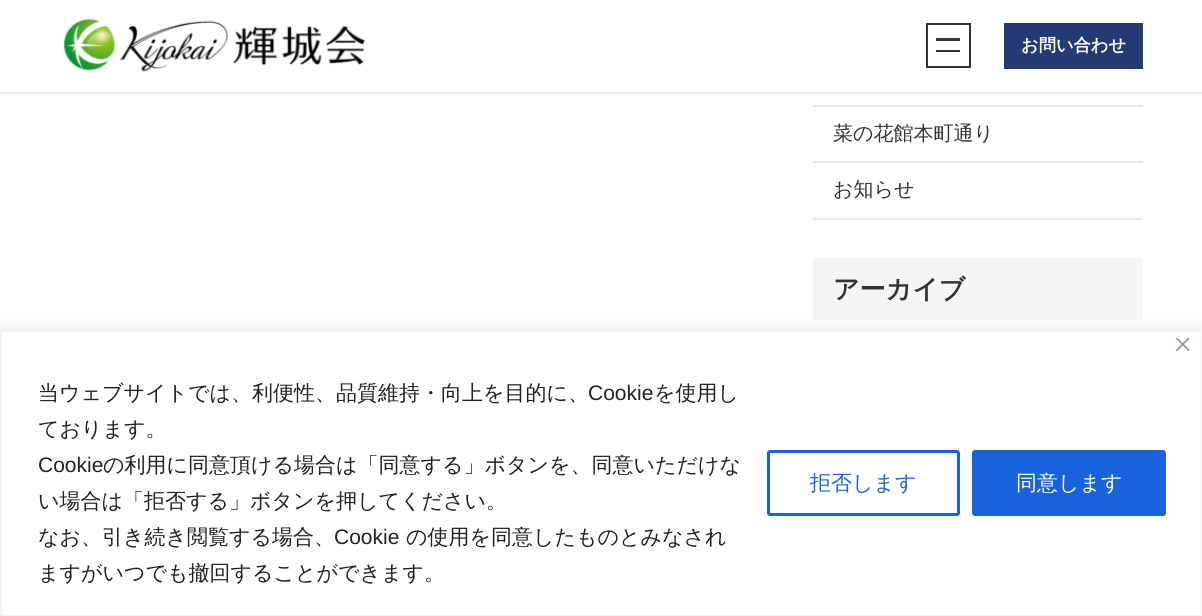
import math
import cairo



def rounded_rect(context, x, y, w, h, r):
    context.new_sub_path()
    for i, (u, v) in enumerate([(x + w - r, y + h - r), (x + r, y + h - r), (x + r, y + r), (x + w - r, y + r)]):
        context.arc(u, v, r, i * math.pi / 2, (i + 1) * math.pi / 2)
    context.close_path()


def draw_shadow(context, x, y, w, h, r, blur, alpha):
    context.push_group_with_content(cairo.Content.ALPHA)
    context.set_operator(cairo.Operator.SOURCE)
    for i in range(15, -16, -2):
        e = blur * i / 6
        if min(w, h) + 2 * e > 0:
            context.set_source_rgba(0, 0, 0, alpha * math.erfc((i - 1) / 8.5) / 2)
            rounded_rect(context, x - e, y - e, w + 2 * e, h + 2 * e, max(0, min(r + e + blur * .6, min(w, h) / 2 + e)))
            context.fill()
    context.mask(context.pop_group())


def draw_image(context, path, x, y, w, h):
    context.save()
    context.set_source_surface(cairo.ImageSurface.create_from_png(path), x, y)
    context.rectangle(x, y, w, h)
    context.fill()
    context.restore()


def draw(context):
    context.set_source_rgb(1, 1, 1)
    context.paint()
    draw_image(context, "images/1.png", 63, 18, 302, 54)
    context.rectangle(927, 24, 43, 43)
    context.set_source_rgb(51 / 255, 51 / 255, 51 / 255)
    context.stroke()
    context.rectangle(936, 38, 24, 3)
    context.fill()
    context.rectangle(936, 50, 24, 2)
    context.fill()
    context.set_source_rgb(35 / 255, 58 / 255, 115 / 255)
    context.rectangle(1004, 23, 139, 46)
    context.fill()
    context.set_source_rgb(230 / 255, 230 / 255, 230 / 255)
    context.rectangle(0, 92, 1202, 2)
    context.fill()
    context.rectangle(813, 105, 330, 2)
    context.fill()
    context.rectangle(813, 161, 330, 2)
    context.fill()
    context.rectangle(813, 218, 330, 2)
    context.fill()
    context.set_source_rgb(245 / 255, 245 / 255, 245 / 255)
    context.rectangle(813, 258, 330, 62)
    context.fill()
    context.set_source_rgb(172 / 255, 171 / 255, 171 / 255)
    draw_shadow(context, 0, 329, 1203, 286, 0, 7.5, 0.3)
    context.set_source_rgb(1, 1, 1)
    context.rectangle(1, 331, 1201, 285)
    context.fill_preserve()
    context.set_source_rgb(244 / 255, 244 / 255, 244 / 255)
    context.stroke()
    draw_image(context, "images/2.png", 1176, 338, 14, 13)
    rounded_rect(context, 768.5, 451.5, 190, 63, 1.5)
    context.set_source_rgb(24 / 255, 99 / 255, 220 / 255)
    context.set_line_width(3)
    context.stroke()
    rounded_rect(context, 973.5, 451.5, 191, 63, 1.5)
    context.fill_preserve()
    context.stroke()
    context.select_font_face("WenQuanYi Zen Hei", cairo.FontSlant.NORMAL, cairo.FontWeight.BOLD)
    context.set_font_size(17.25)
    context.set_source_rgb(1, 1, 1)
    context.move_to(1021, 51)
    context.show_text("お問い合わせ")
    context.select_font_face("WenQuanYi Zen Hei Medium")
    context.set_font_size(20)
    context.set_source_rgb(51 / 255, 51 / 255, 51 / 255)
    context.move_to(833, 140)
    context.show_text("菜の花館本町通り")
    context.move_to(833, 196)
    context.show_text("お知らせ")
    context.select_font_face("WenQuanYi Zen Hei", cairo.FontSlant.NORMAL, cairo.FontWeight.BOLD)
    context.set_font_size(26)
    context.move_to(833, 298)
    context.show_text("アーカイブ")
    context.select_font_face("WenQuanYi Zen Hei Medium")
    context.set_font_size(21)
    context.set_source_rgb(33 / 255, 33 / 255, 33 / 255)
    context.move_to(38, 400)
    context.show_text("当ウェブサイトでは、利便性、品質維持・向上を目的に、")
    context.select_font_face("Liberation Sans")
    context.move_to(588, 400)
    context.show_text("Cookie")
    context.select_font_face("WenQuanYi Zen Hei Medium")
    context.move_to(654, 400)
    context.show_text("を使用し")
    context.move_to(38, 436)
    context.show_text("ております。")
    context.select_font_face("Liberation Sans")
    context.move_to(38, 472)
    context.show_text("Cookie")
    context.select_font_face("WenQuanYi Zen Hei Medium")
    context.move_to(103, 472)
    context.show_text("の利用に同意頂ける場合は「同意する」ボタンを、同意いただけな")
    context.move_to(38, 508)
    context.show_text("い場合は「拒否する」ボタンを押してください。")
    context.move_to(38, 544)
    context.show_text("なお、引き続き閲覧する場合、")
    context.select_font_face("Liberation Sans")
    context.move_to(334, 544)
    context.show_text("Cookie")
    context.select_font_face("WenQuanYi Zen Hei Medium")
    context.move_to(406, 544)
    context.show_text("の使用を同意したものとみなされ")
    context.move_to(38, 580)
    context.show_text("ますがいつでも撤回することができます。")
    context.set_source_rgb(24 / 255, 99 / 255, 220 / 255)
    context.move_to(810, 490)
    context.show_text("拒否します")
    context.set_source_rgb(1, 1, 1)
    context.move_to(1016, 490)
    context.show_text("同意します")


surface = cairo.ImageSurface(cairo.Format.RGB24, 1202, 616)
context = cairo.Context(surface)
options = cairo.FontOptions()
options.set_hint_metrics(cairo.HintMetrics.OFF)
options.set_hint_style(cairo.HintStyle.NONE)
context.set_font_options(options)
context.set_miter_limit(4)
draw(context)
surface.write_to_png("out.png")
